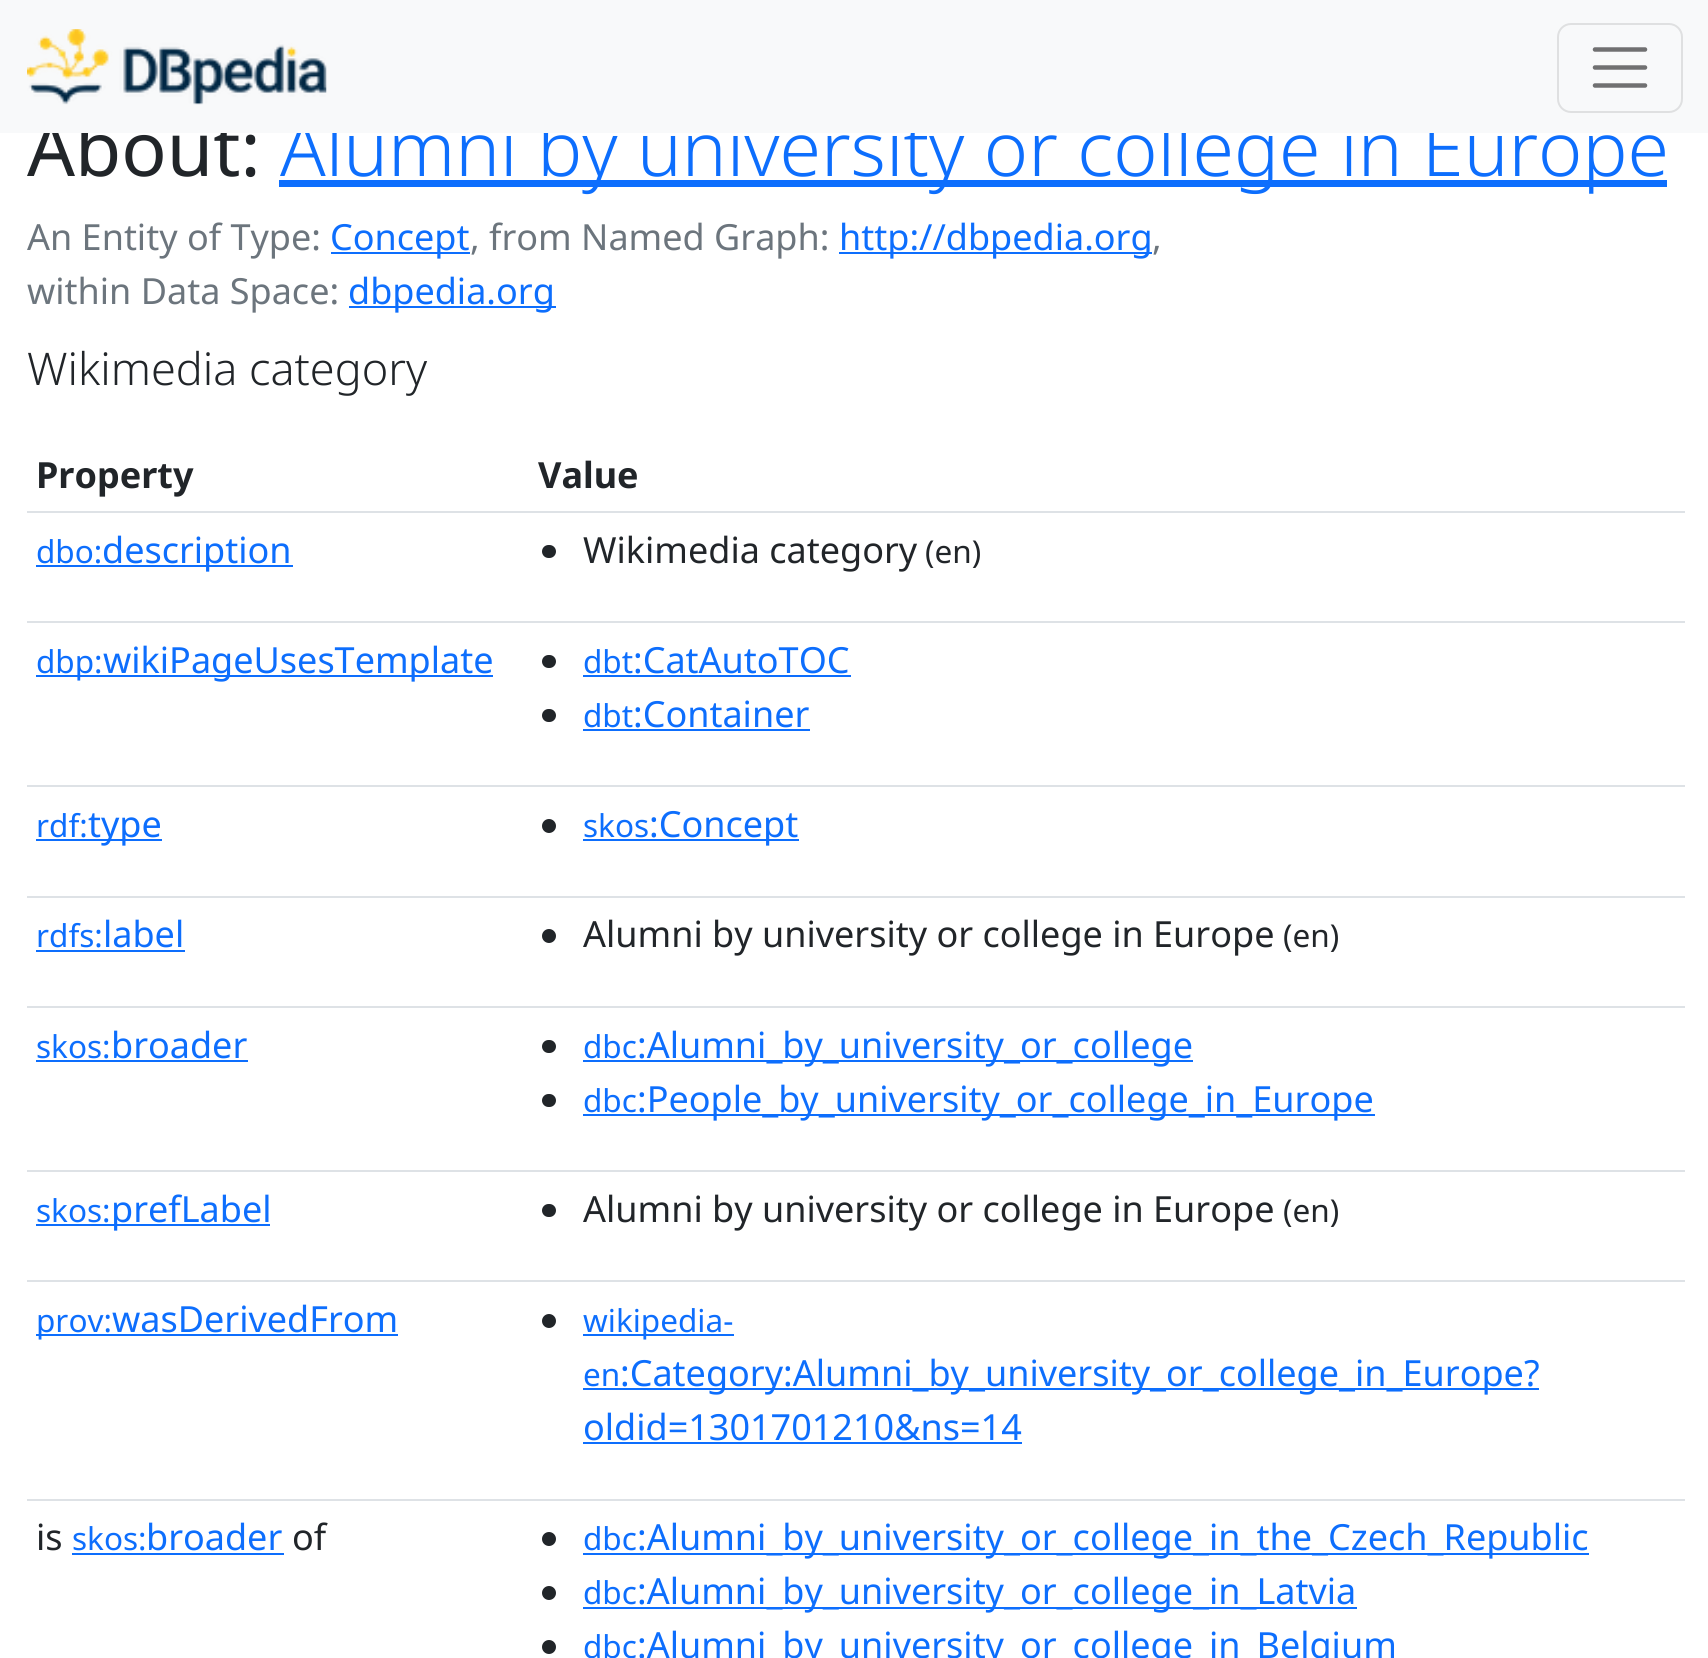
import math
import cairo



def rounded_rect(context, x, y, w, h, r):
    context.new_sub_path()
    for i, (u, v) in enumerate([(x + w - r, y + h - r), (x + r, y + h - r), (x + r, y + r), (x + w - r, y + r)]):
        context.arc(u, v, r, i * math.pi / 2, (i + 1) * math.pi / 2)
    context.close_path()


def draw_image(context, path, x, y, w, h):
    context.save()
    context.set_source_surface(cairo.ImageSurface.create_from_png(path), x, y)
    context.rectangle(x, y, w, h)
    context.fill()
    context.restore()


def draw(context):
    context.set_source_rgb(1, 1, 1)
    context.paint()
    context.set_source_rgb(13 / 255, 110 / 255, 253 / 255)
    context.rectangle(279, 180, 1388, 7)
    context.fill()
    context.rectangle(331, 252, 139, 2)
    context.fill()
    context.rectangle(839, 252, 313, 2)
    context.fill()
    context.rectangle(349, 306, 207, 2)
    context.fill()
    context.set_source_rgb(222 / 255, 226 / 255, 230 / 255)
    context.rectangle(27, 511, 1658, 2)
    context.fill()
    context.set_source_rgb(13 / 255, 110 / 255, 253 / 255)
    context.rectangle(36, 565, 257, 2)
    context.fill()
    context.set_source_rgb(222 / 255, 226 / 255, 230 / 255)
    context.rectangle(27, 621, 1658, 2)
    context.fill()
    context.set_source_rgb(33 / 255, 37 / 255, 41 / 255)
    rounded_rect(context, 542, 545, 14, 13, 6.5)
    context.fill()
    context.set_source_rgb(13 / 255, 110 / 255, 253 / 255)
    context.rectangle(36, 675, 457, 2)
    context.fill()
    context.set_source_rgb(222 / 255, 226 / 255, 230 / 255)
    context.rectangle(27, 785, 1658, 2)
    context.fill()
    context.set_source_rgb(33 / 255, 37 / 255, 41 / 255)
    rounded_rect(context, 542, 655, 14, 13, 6.5)
    context.fill()
    context.set_source_rgb(13 / 255, 110 / 255, 253 / 255)
    context.rectangle(583, 675, 268, 2)
    context.fill()
    context.set_source_rgb(33 / 255, 37 / 255, 41 / 255)
    rounded_rect(context, 542, 709, 14, 13, 6.5)
    context.fill()
    context.set_source_rgb(13 / 255, 110 / 255, 253 / 255)
    context.rectangle(583, 729, 227, 2)
    context.fill()
    context.rectangle(36, 839, 126, 2)
    context.fill()
    context.set_source_rgb(222 / 255, 226 / 255, 230 / 255)
    context.rectangle(27, 896, 1658, 2)
    context.fill()
    context.set_source_rgb(33 / 255, 37 / 255, 41 / 255)
    context.arc(549, 826, 7, 0, 2 * math.pi)
    context.fill()
    context.set_source_rgb(13 / 255, 110 / 255, 253 / 255)
    context.rectangle(583, 839, 216, 2)
    context.fill()
    context.rectangle(36, 950, 149, 2)
    context.fill()
    context.set_source_rgb(222 / 255, 226 / 255, 230 / 255)
    context.rectangle(27, 1006, 1658, 2)
    context.fill()
    context.set_source_rgb(33 / 255, 37 / 255, 41 / 255)
    context.arc(549, 936, 7, 0, 2 * math.pi)
    context.fill()
    context.set_source_rgb(13 / 255, 110 / 255, 253 / 255)
    context.rectangle(36, 1060, 212, 2)
    context.fill()
    context.set_source_rgb(222 / 255, 226 / 255, 230 / 255)
    context.rectangle(27, 1170, 1658, 2)
    context.fill()
    context.set_source_rgb(33 / 255, 37 / 255, 41 / 255)
    rounded_rect(context, 542, 1040, 14, 13, 6.5)
    context.fill()
    context.set_source_rgb(13 / 255, 110 / 255, 253 / 255)
    context.rectangle(583, 1060, 610, 2)
    context.fill()
    context.set_source_rgb(33 / 255, 37 / 255, 41 / 255)
    rounded_rect(context, 542, 1094, 14, 13, 6.5)
    context.fill()
    context.set_source_rgb(13 / 255, 110 / 255, 253 / 255)
    context.rectangle(583, 1114, 792, 2)
    context.fill()
    context.rectangle(36, 1224, 234, 2)
    context.fill()
    context.set_source_rgb(222 / 255, 226 / 255, 230 / 255)
    context.rectangle(27, 1280, 1658, 2)
    context.fill()
    context.set_source_rgb(33 / 255, 37 / 255, 41 / 255)
    rounded_rect(context, 542, 1204, 14, 13, 6.5)
    context.fill()
    context.set_source_rgb(13 / 255, 110 / 255, 253 / 255)
    context.rectangle(36, 1334, 362, 2)
    context.fill()
    context.set_source_rgb(222 / 255, 226 / 255, 230 / 255)
    context.rectangle(27, 1499, 1658, 2)
    context.fill()
    context.set_source_rgb(33 / 255, 37 / 255, 41 / 255)
    context.arc(549, 1321, 7, 0, 2 * math.pi)
    context.fill()
    context.set_source_rgb(13 / 255, 110 / 255, 253 / 255)
    context.rectangle(583, 1334, 151, 2)
    context.fill()
    context.rectangle(583, 1388, 956, 2)
    context.fill()
    context.rectangle(583, 1442, 439, 2)
    context.fill()
    context.rectangle(72, 1553, 212, 2)
    context.fill()
    context.set_source_rgb(33 / 255, 37 / 255, 41 / 255)
    context.arc(549, 1539, 7, 0, 2 * math.pi)
    context.fill()
    context.set_source_rgb(13 / 255, 110 / 255, 253 / 255)
    context.rectangle(583, 1553, 1006, 2)
    context.fill()
    context.set_source_rgb(33 / 255, 37 / 255, 41 / 255)
    context.arc(549, 1593, 7, 0, 2 * math.pi)
    context.fill()
    context.set_source_rgb(13 / 255, 110 / 255, 253 / 255)
    context.rectangle(583, 1607, 774, 2)
    context.fill()
    context.set_source_rgb(33 / 255, 37 / 255, 41 / 255)
    context.arc(549, 1647, 7, 0, 2 * math.pi)
    context.fill()
    context.select_font_face("Noto Sans")
    context.set_font_size(75.2)
    context.move_to(27, 176)
    context.show_text("About:")
    context.select_font_face("Noto Sans Light")
    context.set_source_rgb(13 / 255, 110 / 255, 253 / 255)
    context.move_to(280, 176)
    context.show_text("Alumni by university or college in Europe")
    context.set_source_rgb(248 / 255, 249 / 255, 250 / 255)
    context.rectangle(0, 0, 1708, 133)
    context.fill()
    rounded_rect(context, 1558, 24, 124, 88, 13)
    context.set_source_rgb(223 / 255, 224 / 255, 225 / 255)
    context.stroke()
    context.new_path()
    context.move_to(1595, 49.5)
    context.line_to(1645, 49.5)
    context.move_to(1595, 67.5)
    context.line_to(1645, 67.5)
    context.move_to(1595, 85.5)
    context.line_to(1645, 85.5)
    context.set_source_rgb(112 / 255, 112 / 255, 113 / 255)
    context.set_line_width(4.5)
    context.set_line_cap(cairo.LineCap.ROUND)
    context.stroke()
    draw_image(context, "images/1.png", 27, 29, 300, 76)
    context.select_font_face("Noto Sans")
    context.set_font_size(36)
    context.set_source_rgb(108 / 255, 117 / 255, 125 / 255)
    context.move_to(27, 250)
    context.show_text("An Entity of Type:")
    context.set_source_rgb(13 / 255, 110 / 255, 253 / 255)
    context.move_to(330, 250)
    context.show_text("Concept")
    context.set_source_rgb(108 / 255, 117 / 255, 125 / 255)
    context.move_to(470, 250)
    context.show_text(", from Named Graph:")
    context.set_source_rgb(13 / 255, 110 / 255, 253 / 255)
    context.move_to(839, 250)
    context.show_text("http://dbpedia.org")
    context.set_source_rgb(108 / 255, 117 / 255, 125 / 255)
    context.move_to(1152, 250)
    context.show_text(",")
    context.move_to(27, 304)
    context.show_text("within Data Space:")
    context.set_source_rgb(13 / 255, 110 / 255, 253 / 255)
    context.move_to(348, 304)
    context.show_text("dbpedia.org")
    context.select_font_face("Noto Sans Light")
    context.set_font_size(45)
    context.set_source_rgb(33 / 255, 37 / 255, 41 / 255)
    context.move_to(27, 385)
    context.show_text("Wikimedia category")
    context.select_font_face("Noto Sans", cairo.FontSlant.NORMAL, cairo.FontWeight.BOLD)
    context.set_font_size(36)
    context.move_to(36, 488)
    context.show_text("Property")
    context.move_to(538, 488)
    context.show_text("Value")
    context.select_font_face("Noto Sans")
    context.set_font_size(31.5)
    context.set_source_rgb(13 / 255, 110 / 255, 253 / 255)
    context.move_to(36, 563)
    context.show_text("dbo:")
    context.set_font_size(36)
    context.move_to(102, 563)
    context.show_text("description")
    context.set_source_rgb(33 / 255, 37 / 255, 41 / 255)
    context.move_to(583, 563)
    context.show_text("Wikimedia category")
    context.set_font_size(31.5)
    context.move_to(925, 563)
    context.show_text("(en)")
    context.set_source_rgb(13 / 255, 110 / 255, 253 / 255)
    context.move_to(36, 673)
    context.show_text("dbp:")
    context.set_font_size(36)
    context.move_to(103, 673)
    context.show_text("wikiPageUsesTemplate")
    context.set_font_size(31.5)
    context.move_to(583, 673)
    context.show_text("dbt")
    context.set_font_size(36)
    context.move_to(633, 673)
    context.show_text(":CatAutoTOC")
    context.set_font_size(31.5)
    context.move_to(583, 727)
    context.show_text("dbt")
    context.set_font_size(36)
    context.move_to(633, 727)
    context.show_text(":Container")
    context.set_font_size(31.5)
    context.move_to(36, 837)
    context.show_text("rdf:")
    context.set_font_size(36)
    context.move_to(88, 837)
    context.show_text("type")
    context.set_font_size(31.5)
    context.move_to(583, 837)
    context.show_text("skos")
    context.set_font_size(36)
    context.move_to(649, 837)
    context.show_text(":Concept")
    context.set_font_size(31.5)
    context.move_to(36, 947)
    context.show_text("rdfs:")
    context.set_font_size(36)
    context.move_to(103, 947)
    context.show_text("label")
    context.set_source_rgb(33 / 255, 37 / 255, 41 / 255)
    context.move_to(583, 947)
    context.show_text("Alumni by university or college in Europe")
    context.set_font_size(31.5)
    context.move_to(1283, 947)
    context.show_text("(en)")
    context.set_source_rgb(13 / 255, 110 / 255, 253 / 255)
    context.move_to(36, 1058)
    context.show_text("skos:")
    context.set_font_size(36)
    context.move_to(111, 1058)
    context.show_text("broader")
    context.set_font_size(31.5)
    context.move_to(583, 1058)
    context.show_text("dbc")
    context.set_font_size(36)
    context.move_to(637, 1058)
    context.show_text(":Alumni_by_university_or_college")
    context.set_font_size(31.5)
    context.move_to(583, 1112)
    context.show_text("dbc")
    context.set_font_size(36)
    context.move_to(637, 1112)
    context.show_text(":People_by_university_or_college_in_Europe")
    context.set_font_size(31.5)
    context.move_to(36, 1222)
    context.show_text("skos:")
    context.set_font_size(36)
    context.move_to(111, 1222)
    context.show_text("prefLabel")
    context.set_source_rgb(33 / 255, 37 / 255, 41 / 255)
    context.move_to(583, 1222)
    context.show_text("Alumni by university or college in Europe")
    context.set_font_size(31.5)
    context.move_to(1283, 1222)
    context.show_text("(en)")
    context.set_source_rgb(13 / 255, 110 / 255, 253 / 255)
    context.move_to(36, 1332)
    context.show_text("prov:")
    context.set_font_size(36)
    context.move_to(112, 1332)
    context.show_text("wasDerivedFrom")
    context.set_font_size(31.5)
    context.move_to(583, 1332)
    context.show_text("wikipedia-")
    context.move_to(583, 1386)
    context.show_text("en")
    context.set_font_size(36)
    context.move_to(620, 1386)
    context.show_text(":Category:Alumni_by_university_or_college_in_Europe?")
    context.move_to(583, 1440)
    context.show_text("oldid=1301701210&ns=14")
    context.set_source_rgb(33 / 255, 37 / 255, 41 / 255)
    context.move_to(36, 1550)
    context.show_text("is")
    context.set_font_size(31.5)
    context.set_source_rgb(13 / 255, 110 / 255, 253 / 255)
    context.move_to(72, 1550)
    context.show_text("skos:")
    context.set_font_size(36)
    context.move_to(146, 1550)
    context.show_text("broader")
    context.set_source_rgb(33 / 255, 37 / 255, 41 / 255)
    context.move_to(292, 1550)
    context.show_text("of")
    context.set_font_size(31.5)
    context.set_source_rgb(13 / 255, 110 / 255, 253 / 255)
    context.move_to(583, 1550)
    context.show_text("dbc")
    context.set_font_size(36)
    context.move_to(637, 1550)
    context.show_text(":Alumni_by_university_or_college_in_the_Czech_Republic")
    context.set_font_size(31.5)
    context.move_to(583, 1604)
    context.show_text("dbc")
    context.set_font_size(36)
    context.move_to(637, 1604)
    context.show_text(":Alumni_by_university_or_college_in_Latvia")
    context.set_font_size(31.5)
    context.move_to(583, 1658)
    context.show_text("dbc")
    context.set_font_size(36)
    context.move_to(637, 1658)
    context.show_text(":Alumni_by_university_or_college_in_Belgium")


surface = cairo.ImageSurface(cairo.Format.RGB24, 1708, 1658)
context = cairo.Context(surface)
options = cairo.FontOptions()
options.set_hint_metrics(cairo.HintMetrics.OFF)
options.set_hint_style(cairo.HintStyle.NONE)
context.set_font_options(options)
context.set_miter_limit(4)
draw(context)
surface.write_to_png("out.png")
